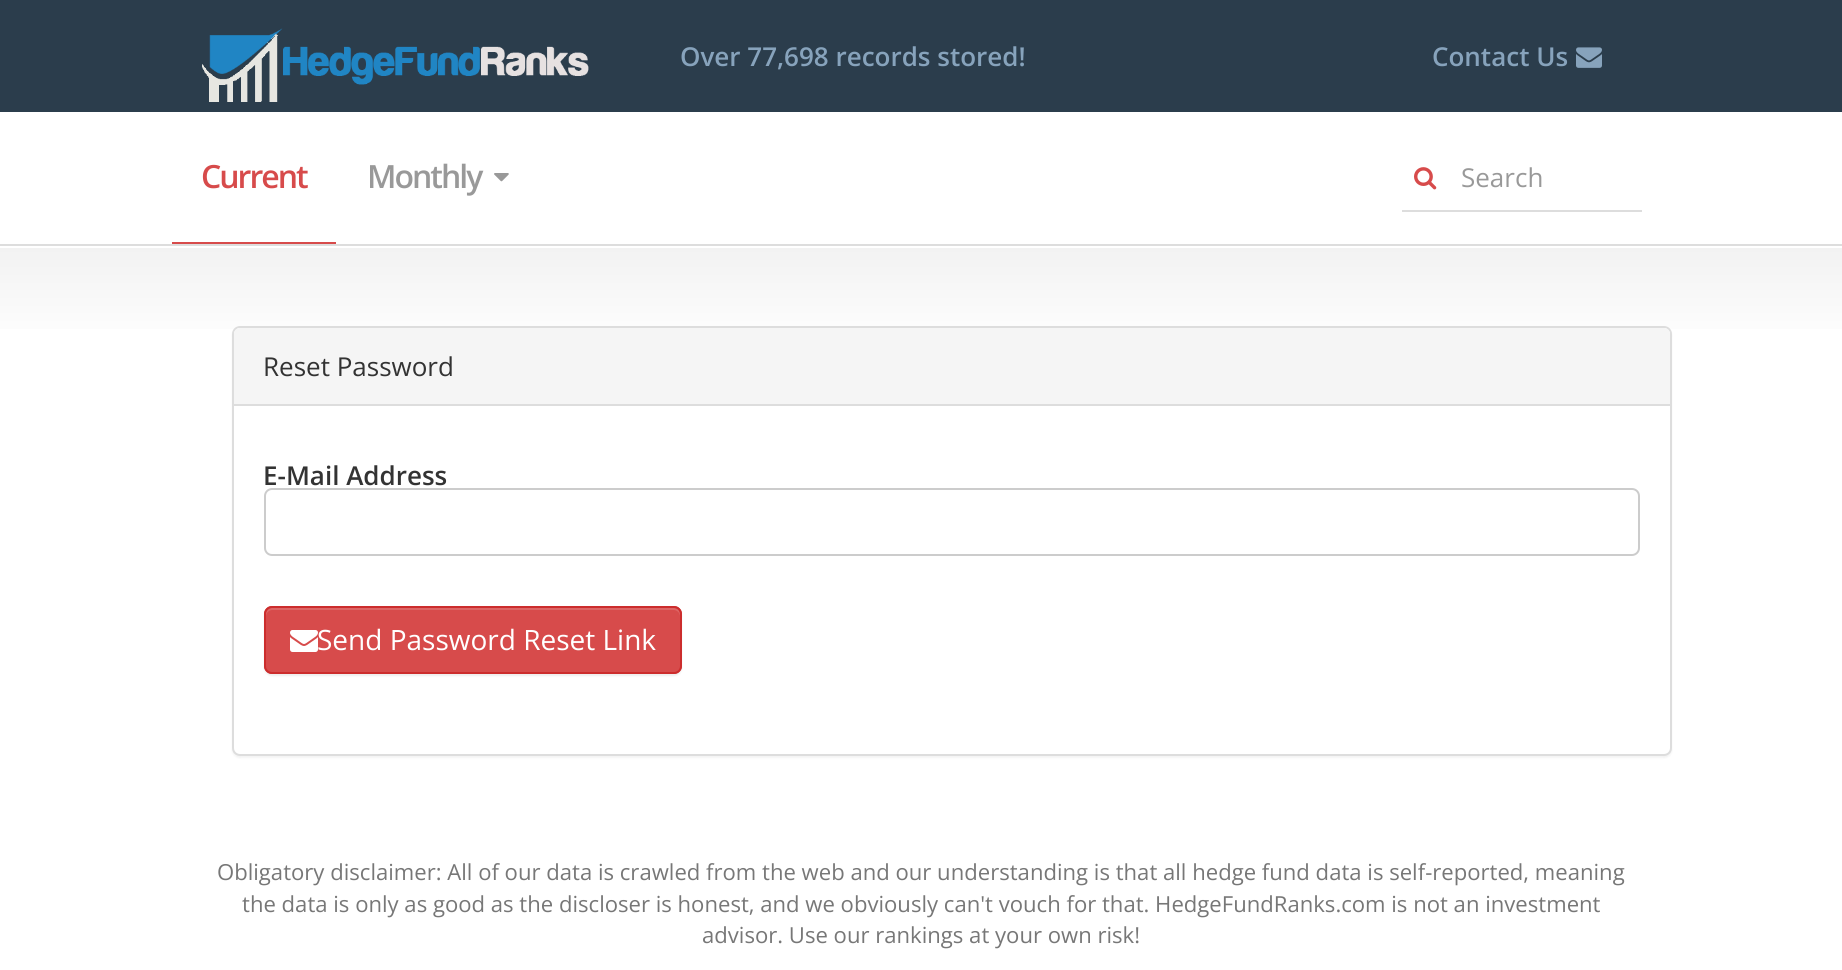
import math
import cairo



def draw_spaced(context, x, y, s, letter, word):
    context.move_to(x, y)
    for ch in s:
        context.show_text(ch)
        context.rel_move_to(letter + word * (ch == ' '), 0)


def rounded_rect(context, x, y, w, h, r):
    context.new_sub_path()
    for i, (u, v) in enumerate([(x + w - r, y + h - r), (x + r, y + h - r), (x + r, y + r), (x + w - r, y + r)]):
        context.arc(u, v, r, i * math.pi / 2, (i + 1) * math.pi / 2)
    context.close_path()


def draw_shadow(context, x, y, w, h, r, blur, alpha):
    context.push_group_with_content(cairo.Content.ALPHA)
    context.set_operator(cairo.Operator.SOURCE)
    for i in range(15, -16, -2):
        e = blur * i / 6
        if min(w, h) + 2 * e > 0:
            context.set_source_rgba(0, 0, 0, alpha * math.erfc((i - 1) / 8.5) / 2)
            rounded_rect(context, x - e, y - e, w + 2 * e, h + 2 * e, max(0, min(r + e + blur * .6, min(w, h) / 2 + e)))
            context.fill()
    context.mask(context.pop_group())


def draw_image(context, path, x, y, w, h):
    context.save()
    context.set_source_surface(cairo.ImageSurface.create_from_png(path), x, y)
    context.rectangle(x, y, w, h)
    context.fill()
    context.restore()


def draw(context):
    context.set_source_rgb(1, 1, 1)
    context.paint()
    context.set_source_rgb(43 / 255, 61 / 255, 76 / 255)
    context.rectangle(0, 0, 1842, 112)
    context.fill()
    draw_image(context, "images/1.png", 202, 28, 387, 74)
    draw_image(context, "images/2.png", 1576, 47, 26, 21)
    context.set_source_rgb(221 / 255, 221 / 255, 221 / 255)
    context.rectangle(0, 244, 1842, 2)
    context.fill()
    context.set_source_rgb(215 / 255, 75 / 255, 75 / 255)
    context.rectangle(172, 242, 164, 2)
    context.fill()
    draw_image(context, "images/3.png", 494, 173, 15, 9)
    draw_image(context, "images/4.png", 1414, 167, 23, 23)
    context.set_source_rgb(221 / 255, 221 / 255, 221 / 255)
    context.rectangle(1402, 210, 240, 2)
    context.fill()
    gradient = cairo.LinearGradient(921, 248, 921, 348)
    gradient.add_color_stop_rgba(0, 242 / 255, 242 / 255, 242 / 255, 1)
    gradient.add_color_stop_rgba(1, 1, 1, 1, 1)
    context.set_source(gradient)
    context.rectangle(0, 248, 1842, 81)
    context.fill()
    context.set_source_rgb(0, 0, 0)
    draw_shadow(context, 232, 328, 1440, 430, 8, 1, 0.05)
    context.set_source_rgb(1, 1, 1)
    rounded_rect(context, 233, 327, 1438, 428, 7)
    context.fill_preserve()
    context.set_source_rgb(221 / 255, 221 / 255, 221 / 255)
    context.stroke()
    context.set_source_rgb(245 / 255, 245 / 255, 245 / 255)
    context.new_path()
    context.move_to(240, 328)
    context.line_to(1664, 328)
    context.curve_to(1667.5, 328, 1670, 330.5, 1670, 334)
    context.line_to(1670, 406)
    context.line_to(234, 406)
    context.line_to(234, 334)
    context.curve_to(234, 330.5, 236.5, 328, 240, 328)
    context.close_path()
    context.fill()
    context.set_source_rgb(221 / 255, 221 / 255, 221 / 255)
    context.rectangle(234, 404, 1436, 2)
    context.fill()
    rounded_rect(context, 265, 489, 1374, 66, 7)
    context.set_source_rgb(204 / 255, 204 / 255, 204 / 255)
    context.stroke()
    context.set_source_rgb(0, 0, 0)
    draw_shadow(context, 264, 608, 418, 68, 8, 1, 0.07)
    context.set_source_rgb(215 / 255, 75 / 255, 75 / 255)
    rounded_rect(context, 264, 606, 418, 68, 8)
    context.fill()
    context.set_source_rgb(221 / 255, 102 / 255, 102 / 255)
    context.new_path()
    context.move_to(272, 610)
    context.line_to(674, 610)
    context.curve_to(677, 610, 680, 613, 680, 616)
    context.line_to(680, 614)
    context.curve_to(680, 611, 677, 608, 674, 608)
    context.line_to(272, 608)
    context.curve_to(269, 608, 266, 611, 266, 614)
    context.line_to(266, 616)
    context.curve_to(266, 613, 269, 610, 272, 610)
    context.close_path()
    context.fill()
    rounded_rect(context, 265, 607, 416, 66, 7)
    context.set_source_rgb(204 / 255, 45 / 255, 45 / 255)
    context.stroke()
    draw_image(context, "images/5.png", 290, 630, 28, 22)
    context.select_font_face("Open Sans SemiBold")
    context.set_font_size(26)
    context.set_source_rgb(135 / 255, 163 / 255, 188 / 255)
    context.move_to(680, 66)
    context.show_text("Over 77,698 records stored!")
    context.move_to(1432, 66)
    context.show_text("Contact Us")
    context.set_font_size(32)
    context.set_source_rgb(215 / 255, 75 / 255, 75 / 255)
    draw_spaced(context, 201, 188, "Current", -2, 0)
    context.set_source_rgb(153 / 255, 153 / 255, 153 / 255)
    draw_spaced(context, 367, 188, "Monthly", -2, 0)
    context.select_font_face("Open Sans")
    context.set_font_size(26)
    context.move_to(1461, 187)
    context.show_text("Search")
    context.set_source_rgb(51 / 255, 51 / 255, 51 / 255)
    context.move_to(263, 376)
    context.show_text("Reset Password")
    context.select_font_face("Open Sans SemiBold")
    context.move_to(263, 485)
    context.show_text("E-Mail Address")
    context.select_font_face("Open Sans")
    context.set_font_size(28)
    context.set_source_rgb(1, 1, 1)
    context.move_to(317, 650)
    context.show_text("Send Password Reset Link")
    context.set_font_size(22.1)
    context.set_source_rgb(119 / 255, 119 / 255, 119 / 255)
    context.move_to(217, 880)
    context.show_text("Obligatory disclaimer: All of our data is crawled from the web and our understanding is that all hedge fund data is self-reported, meaning")
    context.move_to(242, 912)
    context.show_text("the data is only as good as the discloser is honest, and we obviously can't vouch for that. HedgeFundRanks.com is not an investment")
    context.move_to(702, 943)
    context.show_text("advisor. Use our rankings at your own risk!")


surface = cairo.ImageSurface(cairo.Format.RGB24, 1842, 970)
context = cairo.Context(surface)
options = cairo.FontOptions()
options.set_hint_metrics(cairo.HintMetrics.OFF)
options.set_hint_style(cairo.HintStyle.NONE)
context.set_font_options(options)
context.set_miter_limit(4)
draw(context)
surface.write_to_png("out.png")
